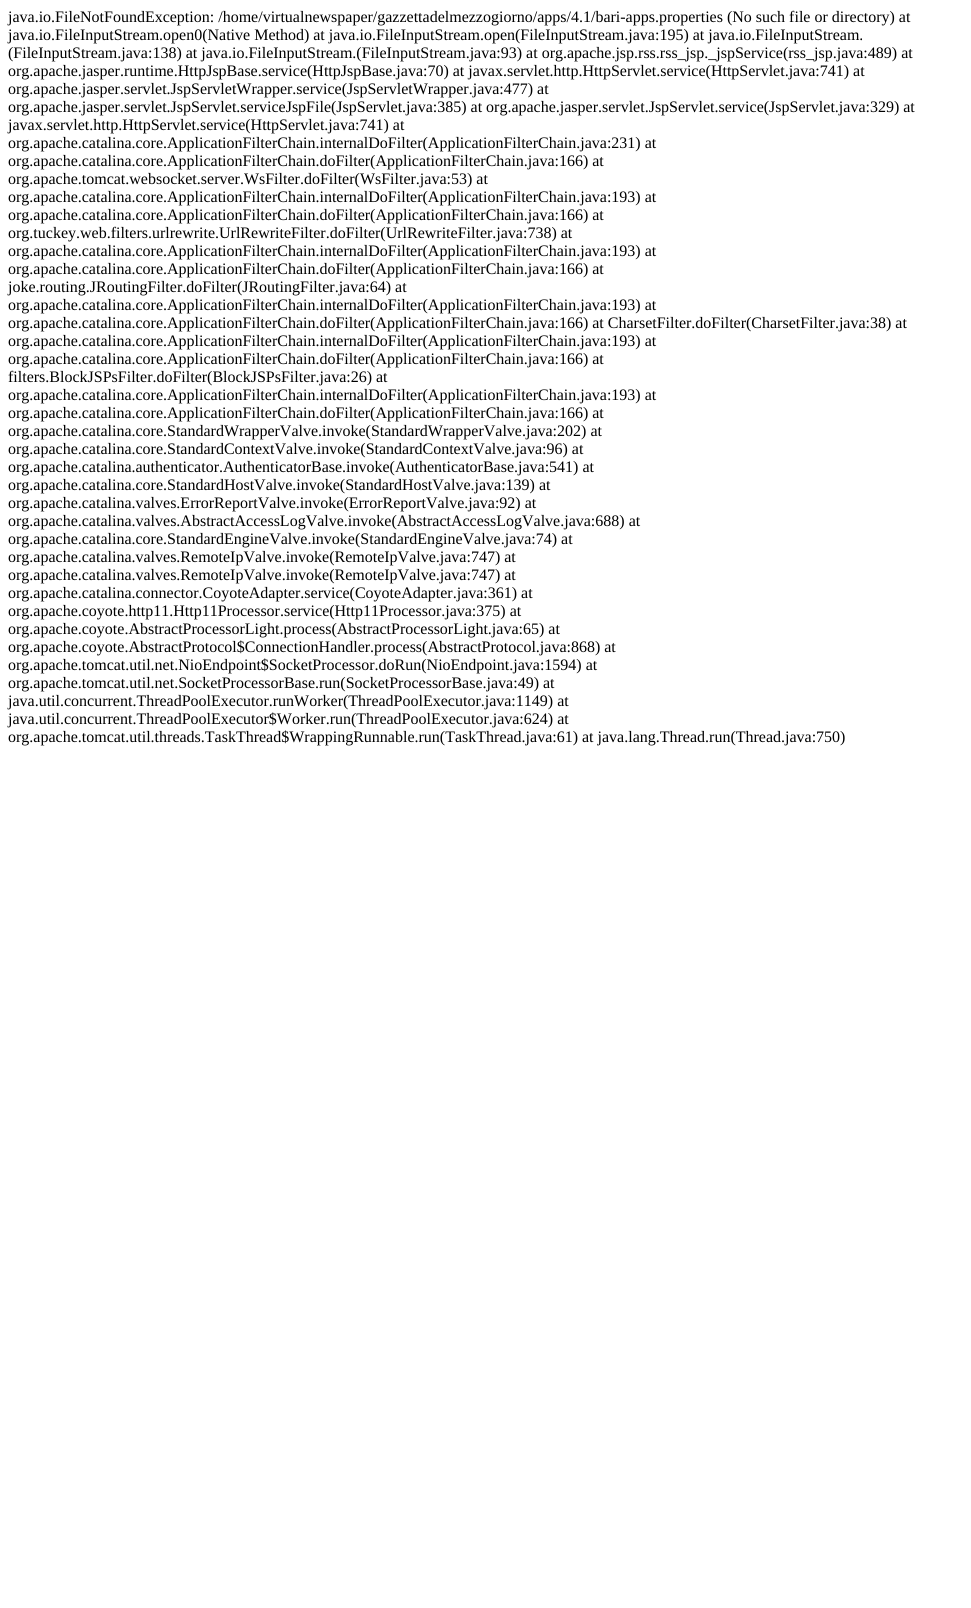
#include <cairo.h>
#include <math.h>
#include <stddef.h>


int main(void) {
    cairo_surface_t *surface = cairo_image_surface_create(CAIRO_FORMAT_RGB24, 971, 1608);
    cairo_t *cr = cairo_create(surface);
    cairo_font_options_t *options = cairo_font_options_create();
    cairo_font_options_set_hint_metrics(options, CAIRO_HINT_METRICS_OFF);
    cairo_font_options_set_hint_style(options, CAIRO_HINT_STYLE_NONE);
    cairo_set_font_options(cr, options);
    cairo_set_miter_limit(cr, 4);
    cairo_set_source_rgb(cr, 1, 1, 1);
    cairo_paint(cr);
    cairo_select_font_face(cr, "Liberation Serif", CAIRO_FONT_SLANT_NORMAL, CAIRO_FONT_WEIGHT_NORMAL);
    cairo_set_font_size(cr, 16);
    cairo_set_source_rgb(cr, 0, 0, 0);
    cairo_move_to(cr, 8, 22);
    cairo_show_text(cr, "java.io.FileNotFoundException: /home/virtualnewspaper/gazzettadelmezzogiorno/apps/4.1/bari-apps.properties (No such file or directory) at");
    cairo_move_to(cr, 8, 40);
    cairo_show_text(cr, "java.io.FileInputStream.open0(Native Method) at java.io.FileInputStream.open(FileInputStream.java:195) at java.io.FileInputStream.");
    cairo_move_to(cr, 8, 58);
    cairo_show_text(cr, "(FileInputStream.java:138) at java.io.FileInputStream.(FileInputStream.java:93) at org.apache.jsp.rss.rss_jsp._jspService(rss_jsp.java:489) at");
    cairo_move_to(cr, 8, 76);
    cairo_show_text(cr, "org.apache.jasper.runtime.HttpJspBase.service(HttpJspBase.java:70) at javax.servlet.http.HttpServlet.service(HttpServlet.java:741) at");
    cairo_move_to(cr, 8, 94);
    cairo_show_text(cr, "org.apache.jasper.servlet.JspServletWrapper.service(JspServletWrapper.java:477) at");
    cairo_move_to(cr, 8, 112);
    cairo_show_text(cr, "org.apache.jasper.servlet.JspServlet.serviceJspFile(JspServlet.java:385) at org.apache.jasper.servlet.JspServlet.service(JspServlet.java:329) at");
    cairo_move_to(cr, 8, 130);
    cairo_show_text(cr, "javax.servlet.http.HttpServlet.service(HttpServlet.java:741) at");
    cairo_move_to(cr, 8, 148);
    cairo_show_text(cr, "org.apache.catalina.core.ApplicationFilterChain.internalDoFilter(ApplicationFilterChain.java:231) at");
    cairo_move_to(cr, 8, 166);
    cairo_show_text(cr, "org.apache.catalina.core.ApplicationFilterChain.doFilter(ApplicationFilterChain.java:166) at");
    cairo_move_to(cr, 8, 184);
    cairo_show_text(cr, "org.apache.tomcat.websocket.server.WsFilter.doFilter(WsFilter.java:53) at");
    cairo_move_to(cr, 8, 202);
    cairo_show_text(cr, "org.apache.catalina.core.ApplicationFilterChain.internalDoFilter(ApplicationFilterChain.java:193) at");
    cairo_move_to(cr, 8, 220);
    cairo_show_text(cr, "org.apache.catalina.core.ApplicationFilterChain.doFilter(ApplicationFilterChain.java:166) at");
    cairo_move_to(cr, 8, 238);
    cairo_show_text(cr, "org.tuckey.web.filters.urlrewrite.UrlRewriteFilter.doFilter(UrlRewriteFilter.java:738) at");
    cairo_move_to(cr, 8, 256);
    cairo_show_text(cr, "org.apache.catalina.core.ApplicationFilterChain.internalDoFilter(ApplicationFilterChain.java:193) at");
    cairo_move_to(cr, 8, 274);
    cairo_show_text(cr, "org.apache.catalina.core.ApplicationFilterChain.doFilter(ApplicationFilterChain.java:166) at");
    cairo_move_to(cr, 8, 292);
    cairo_show_text(cr, "joke.routing.JRoutingFilter.doFilter(JRoutingFilter.java:64) at");
    cairo_move_to(cr, 8, 310);
    cairo_show_text(cr, "org.apache.catalina.core.ApplicationFilterChain.internalDoFilter(ApplicationFilterChain.java:193) at");
    cairo_move_to(cr, 8, 328);
    cairo_show_text(cr, "org.apache.catalina.core.ApplicationFilterChain.doFilter(ApplicationFilterChain.java:166) at CharsetFilter.doFilter(CharsetFilter.java:38) at");
    cairo_move_to(cr, 8, 346);
    cairo_show_text(cr, "org.apache.catalina.core.ApplicationFilterChain.internalDoFilter(ApplicationFilterChain.java:193) at");
    cairo_move_to(cr, 8, 364);
    cairo_show_text(cr, "org.apache.catalina.core.ApplicationFilterChain.doFilter(ApplicationFilterChain.java:166) at");
    cairo_move_to(cr, 8, 382);
    cairo_show_text(cr, "filters.BlockJSPsFilter.doFilter(BlockJSPsFilter.java:26) at");
    cairo_move_to(cr, 8, 400);
    cairo_show_text(cr, "org.apache.catalina.core.ApplicationFilterChain.internalDoFilter(ApplicationFilterChain.java:193) at");
    cairo_move_to(cr, 8, 418);
    cairo_show_text(cr, "org.apache.catalina.core.ApplicationFilterChain.doFilter(ApplicationFilterChain.java:166) at");
    cairo_move_to(cr, 8, 436);
    cairo_show_text(cr, "org.apache.catalina.core.StandardWrapperValve.invoke(StandardWrapperValve.java:202) at");
    cairo_move_to(cr, 8, 454);
    cairo_show_text(cr, "org.apache.catalina.core.StandardContextValve.invoke(StandardContextValve.java:96) at");
    cairo_move_to(cr, 8, 472);
    cairo_show_text(cr, "org.apache.catalina.authenticator.AuthenticatorBase.invoke(AuthenticatorBase.java:541) at");
    cairo_move_to(cr, 8, 490);
    cairo_show_text(cr, "org.apache.catalina.core.StandardHostValve.invoke(StandardHostValve.java:139) at");
    cairo_move_to(cr, 8, 508);
    cairo_show_text(cr, "org.apache.catalina.valves.ErrorReportValve.invoke(ErrorReportValve.java:92) at");
    cairo_move_to(cr, 8, 526);
    cairo_show_text(cr, "org.apache.catalina.valves.AbstractAccessLogValve.invoke(AbstractAccessLogValve.java:688) at");
    cairo_move_to(cr, 8, 544);
    cairo_show_text(cr, "org.apache.catalina.core.StandardEngineValve.invoke(StandardEngineValve.java:74) at");
    cairo_move_to(cr, 8, 562);
    cairo_show_text(cr, "org.apache.catalina.valves.RemoteIpValve.invoke(RemoteIpValve.java:747) at");
    cairo_move_to(cr, 8, 580);
    cairo_show_text(cr, "org.apache.catalina.valves.RemoteIpValve.invoke(RemoteIpValve.java:747) at");
    cairo_move_to(cr, 8, 598);
    cairo_show_text(cr, "org.apache.catalina.connector.CoyoteAdapter.service(CoyoteAdapter.java:361) at");
    cairo_move_to(cr, 8, 616);
    cairo_show_text(cr, "org.apache.coyote.http11.Http11Processor.service(Http11Processor.java:375) at");
    cairo_move_to(cr, 8, 634);
    cairo_show_text(cr, "org.apache.coyote.AbstractProcessorLight.process(AbstractProcessorLight.java:65) at");
    cairo_move_to(cr, 8, 652);
    cairo_show_text(cr, "org.apache.coyote.AbstractProtocol$ConnectionHandler.process(AbstractProtocol.java:868) at");
    cairo_move_to(cr, 8, 670);
    cairo_show_text(cr, "org.apache.tomcat.util.net.NioEndpoint$SocketProcessor.doRun(NioEndpoint.java:1594) at");
    cairo_move_to(cr, 8, 688);
    cairo_show_text(cr, "org.apache.tomcat.util.net.SocketProcessorBase.run(SocketProcessorBase.java:49) at");
    cairo_move_to(cr, 8, 706);
    cairo_show_text(cr, "java.util.concurrent.ThreadPoolExecutor.runWorker(ThreadPoolExecutor.java:1149) at");
    cairo_move_to(cr, 8, 724);
    cairo_show_text(cr, "java.util.concurrent.ThreadPoolExecutor$Worker.run(ThreadPoolExecutor.java:624) at");
    cairo_move_to(cr, 8, 742);
    cairo_show_text(cr, "org.apache.tomcat.util.threads.TaskThread$WrappingRunnable.run(TaskThread.java:61) at java.lang.Thread.run(Thread.java:750)");
    cairo_surface_write_to_png(surface, "page.png");
    cairo_font_options_destroy(options);
    cairo_destroy(cr);
    cairo_surface_destroy(surface);
    return 0;
}
